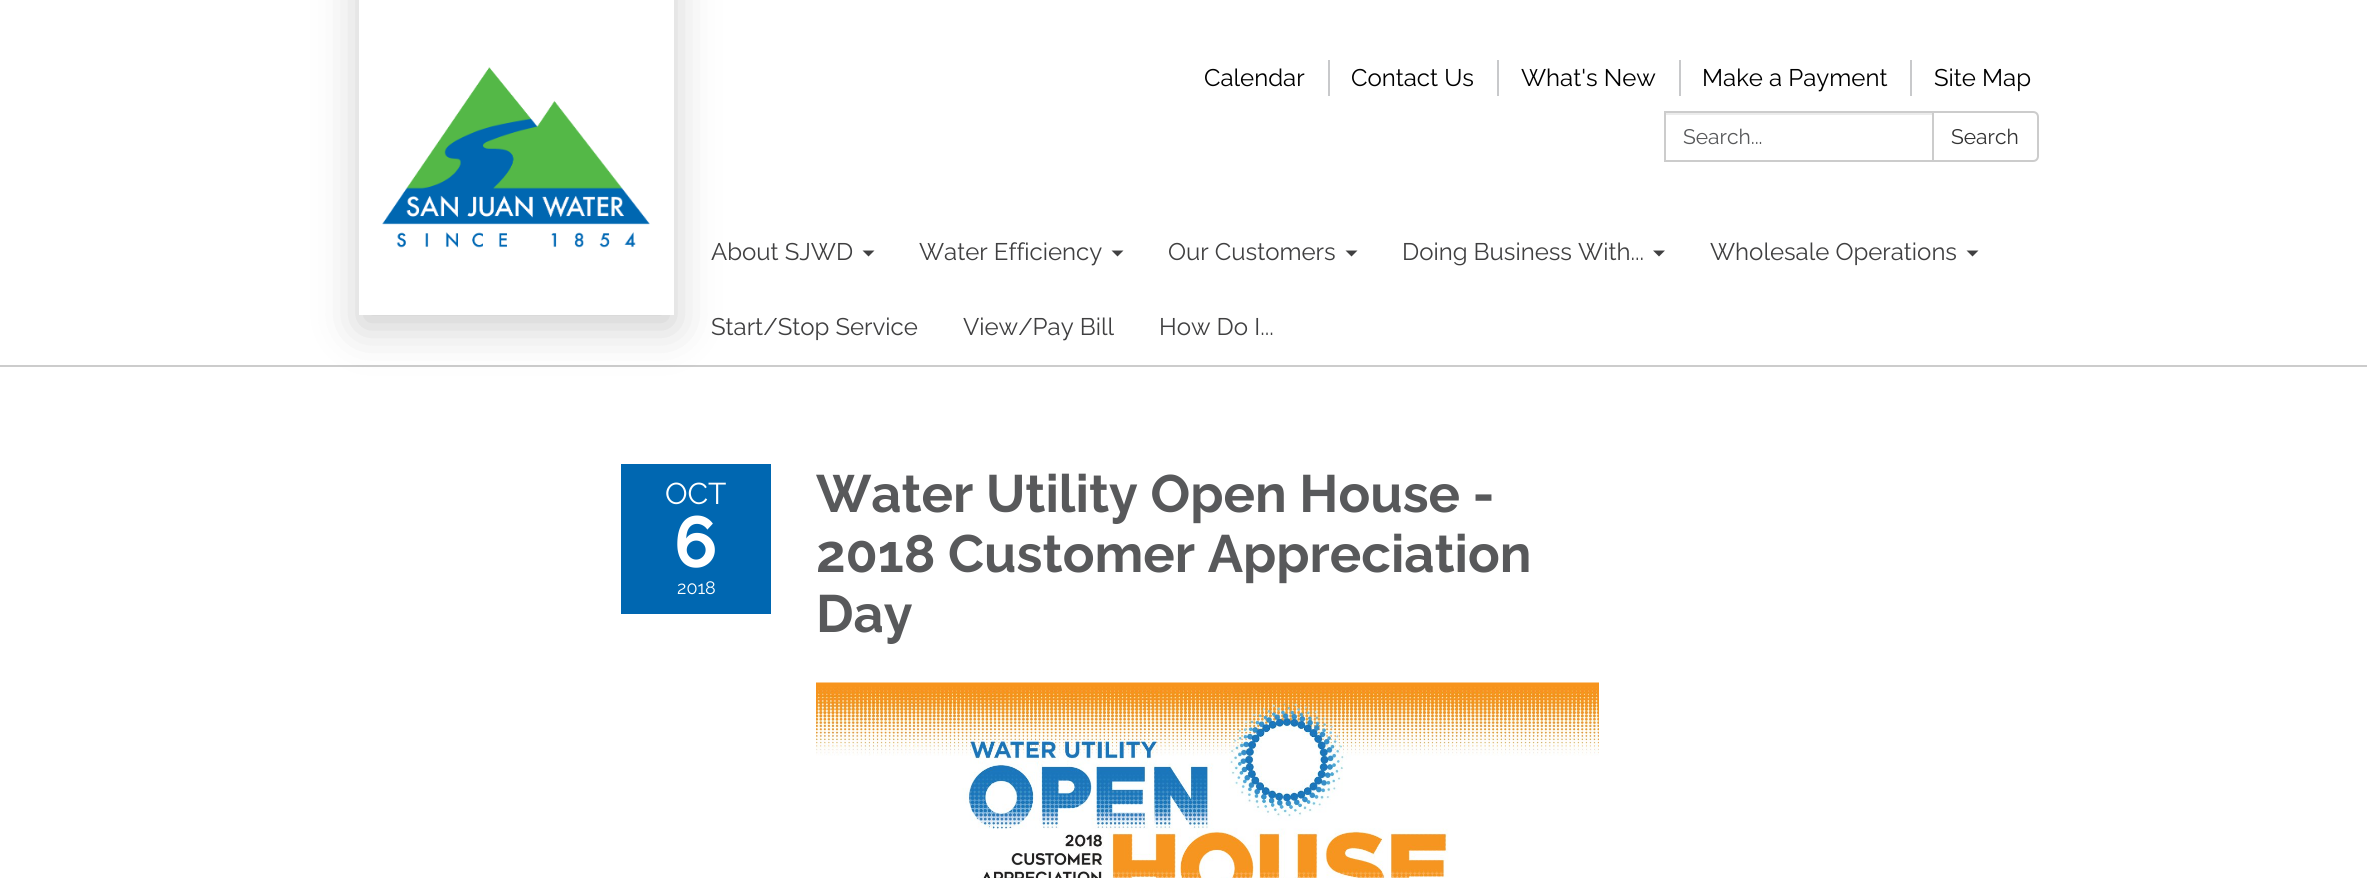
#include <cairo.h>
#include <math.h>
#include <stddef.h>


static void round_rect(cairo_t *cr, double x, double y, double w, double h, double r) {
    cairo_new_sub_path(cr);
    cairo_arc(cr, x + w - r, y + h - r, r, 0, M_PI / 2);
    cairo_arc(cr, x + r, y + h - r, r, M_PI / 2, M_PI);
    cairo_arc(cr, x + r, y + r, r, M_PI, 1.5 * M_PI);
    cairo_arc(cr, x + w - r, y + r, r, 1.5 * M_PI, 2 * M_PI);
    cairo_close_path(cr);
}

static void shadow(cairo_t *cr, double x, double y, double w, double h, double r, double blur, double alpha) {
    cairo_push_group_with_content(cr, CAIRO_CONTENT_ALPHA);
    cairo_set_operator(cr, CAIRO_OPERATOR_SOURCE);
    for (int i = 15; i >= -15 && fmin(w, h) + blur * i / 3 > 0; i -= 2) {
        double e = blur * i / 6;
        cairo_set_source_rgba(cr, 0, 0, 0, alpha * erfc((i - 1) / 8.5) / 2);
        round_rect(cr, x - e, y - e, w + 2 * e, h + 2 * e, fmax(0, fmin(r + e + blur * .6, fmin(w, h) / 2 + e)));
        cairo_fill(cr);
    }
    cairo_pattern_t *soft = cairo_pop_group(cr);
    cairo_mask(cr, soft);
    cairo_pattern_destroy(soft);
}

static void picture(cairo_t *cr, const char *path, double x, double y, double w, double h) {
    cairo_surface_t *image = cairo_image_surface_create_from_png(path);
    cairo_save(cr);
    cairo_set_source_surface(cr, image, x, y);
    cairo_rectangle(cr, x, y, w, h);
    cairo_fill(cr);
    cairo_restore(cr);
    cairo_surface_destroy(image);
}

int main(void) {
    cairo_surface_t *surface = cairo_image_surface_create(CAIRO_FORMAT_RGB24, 2367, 878);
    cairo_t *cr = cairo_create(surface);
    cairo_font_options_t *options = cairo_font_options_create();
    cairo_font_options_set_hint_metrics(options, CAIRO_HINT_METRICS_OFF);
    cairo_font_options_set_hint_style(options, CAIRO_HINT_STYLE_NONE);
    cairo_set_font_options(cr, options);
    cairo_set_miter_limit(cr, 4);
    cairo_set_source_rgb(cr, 1, 1, 1);
    cairo_paint(cr);
    cairo_set_source_rgb(cr, 0.8, 0.8, 0.8);
    cairo_rectangle(cr, 0, 365, 2367, 2);
    cairo_fill(cr);
    cairo_set_source_rgb(cr, 0, 0, 0);
    shadow(cr, 359, -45, 315, 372, 0, 22.5, 0.2);
    cairo_set_source_rgb(cr, 1, 1, 1);
    cairo_rectangle(cr, 359, 0, 315, 315);
    cairo_fill(cr);
    picture(cr, "img1.png", 382, 67, 268, 181);
    cairo_select_font_face(cr, "Raleway", CAIRO_FONT_SLANT_NORMAL, CAIRO_FONT_WEIGHT_NORMAL);
    cairo_set_font_size(cr, 24);
    cairo_set_source_rgb(cr, 0, 0, 0);
    cairo_move_to(cr, 1204, 86);
    cairo_show_text(cr, "Calendar");
    cairo_set_source_rgb(cr, 0.784, 0.788, 0.796);
    cairo_rectangle(cr, 1328, 60, 2, 36);
    cairo_fill(cr);
    cairo_set_source_rgb(cr, 0, 0, 0);
    cairo_move_to(cr, 1351, 86);
    cairo_show_text(cr, "Contact Us");
    cairo_set_source_rgb(cr, 0.784, 0.788, 0.796);
    cairo_rectangle(cr, 1497, 60, 2, 36);
    cairo_fill(cr);
    cairo_set_source_rgb(cr, 0, 0, 0);
    cairo_move_to(cr, 1521, 86);
    cairo_show_text(cr, "What's New");
    cairo_set_source_rgb(cr, 0.784, 0.788, 0.796);
    cairo_rectangle(cr, 1679, 60, 2, 36);
    cairo_fill(cr);
    cairo_set_source_rgb(cr, 0, 0, 0);
    cairo_move_to(cr, 1702, 86);
    cairo_show_text(cr, "Make a Payment");
    cairo_set_source_rgb(cr, 0.784, 0.788, 0.796);
    cairo_rectangle(cr, 1910, 60, 2, 36);
    cairo_fill(cr);
    cairo_set_source_rgb(cr, 0, 0, 0);
    cairo_move_to(cr, 1934, 86);
    cairo_show_text(cr, "Site Map");
    cairo_set_source_rgb(cr, 0.925, 0.925, 0.925);
    cairo_rectangle(cr, 1665, 113, 267, 2);
    cairo_fill(cr);
    cairo_rectangle(cr, 1665, 112, 268, 49);
    cairo_set_source_rgb(cr, 0.8, 0.8, 0.8);
    cairo_stroke(cr);
    cairo_set_font_size(cr, 21);
    cairo_set_source_rgb(cr, 0.345, 0.349, 0.357);
    cairo_move_to(cr, 1683, 144);
    cairo_show_text(cr, "Search...");
    cairo_set_source_rgb(cr, 1, 1, 1);
    cairo_new_path(cr);
    cairo_move_to(cr, 1933, 112);
    cairo_line_to(cr, 2033, 112);
    cairo_curve_to(cr, 2036, 112, 2038, 114, 2038, 117);
    cairo_line_to(cr, 2038, 156);
    cairo_curve_to(cr, 2038, 159, 2036, 161, 2033, 161);
    cairo_line_to(cr, 1933, 161);
    cairo_close_path(cr);
    cairo_fill_preserve(cr);
    cairo_set_source_rgb(cr, 0.8, 0.8, 0.8);
    cairo_stroke(cr);
    cairo_set_source_rgb(cr, 0.2, 0.2, 0.2);
    cairo_move_to(cr, 1951, 144);
    cairo_show_text(cr, "Search");
    cairo_set_font_size(cr, 24);
    cairo_set_source_rgb(cr, 0.251, 0.251, 0.255);
    cairo_move_to(cr, 711, 260);
    cairo_show_text(cr, "About SJWD");
    cairo_new_path(cr);
    cairo_move_to(cr, 862.5, 250.5);
    cairo_line_to(cr, 874.5, 250.5);
    cairo_line_to(cr, 868.5, 256.5);
    cairo_close_path(cr);
    cairo_fill(cr);
    cairo_move_to(cr, 919, 260);
    cairo_show_text(cr, "Water Efficiency");
    cairo_new_path(cr);
    cairo_move_to(cr, 1111.5, 250.5);
    cairo_line_to(cr, 1123.5, 250.5);
    cairo_line_to(cr, 1117.5, 256.5);
    cairo_close_path(cr);
    cairo_fill(cr);
    cairo_move_to(cr, 1168, 260);
    cairo_show_text(cr, "Our Customers");
    cairo_new_path(cr);
    cairo_move_to(cr, 1345.5, 250.5);
    cairo_line_to(cr, 1357.5, 250.5);
    cairo_line_to(cr, 1351.5, 256.5);
    cairo_close_path(cr);
    cairo_fill(cr);
    cairo_move_to(cr, 1402, 260);
    cairo_show_text(cr, "Doing Business With...");
    cairo_new_path(cr);
    cairo_move_to(cr, 1653, 250.5);
    cairo_line_to(cr, 1665, 250.5);
    cairo_line_to(cr, 1659, 256.5);
    cairo_close_path(cr);
    cairo_fill(cr);
    cairo_move_to(cr, 1710, 260);
    cairo_show_text(cr, "Wholesale Operations");
    cairo_new_path(cr);
    cairo_move_to(cr, 1966.5, 250.5);
    cairo_line_to(cr, 1978.5, 250.5);
    cairo_line_to(cr, 1972.5, 256.5);
    cairo_close_path(cr);
    cairo_fill(cr);
    cairo_move_to(cr, 711, 335);
    cairo_show_text(cr, "Start/Stop Service");
    cairo_move_to(cr, 963, 335);
    cairo_show_text(cr, "View/Pay Bill");
    cairo_move_to(cr, 1159, 335);
    cairo_show_text(cr, "How Do I...");
    cairo_set_source_rgb(cr, 0, 0.404, 0.694);
    cairo_rectangle(cr, 621, 464, 150, 150);
    cairo_fill(cr);
    cairo_set_font_size(cr, 30);
    cairo_set_source_rgb(cr, 1, 1, 1);
    cairo_move_to(cr, 665, 504);
    cairo_show_text(cr, "OCT");
    cairo_select_font_face(cr, "Raleway", CAIRO_FONT_SLANT_NORMAL, CAIRO_FONT_WEIGHT_BOLD);
    cairo_set_font_size(cr, 72);
    cairo_move_to(cr, 674, 567);
    cairo_show_text(cr, "6");
    cairo_select_font_face(cr, "Raleway", CAIRO_FONT_SLANT_NORMAL, CAIRO_FONT_WEIGHT_NORMAL);
    cairo_set_font_size(cr, 18);
    cairo_move_to(cr, 677, 594);
    cairo_show_text(cr, "2018");
    cairo_select_font_face(cr, "Raleway", CAIRO_FONT_SLANT_NORMAL, CAIRO_FONT_WEIGHT_BOLD);
    cairo_set_font_size(cr, 52.5);
    cairo_set_source_rgb(cr, 0.345, 0.349, 0.357);
    cairo_move_to(cr, 816, 512);
    cairo_show_text(cr, "Water Utility Open House -");
    cairo_move_to(cr, 816, 572);
    cairo_show_text(cr, "2018 Customer Appreciation");
    cairo_move_to(cr, 816, 632);
    cairo_show_text(cr, "Day");
    picture(cr, "img2.png", 816, 682, 783, 196);
    cairo_surface_write_to_png(surface, "page.png");
    cairo_font_options_destroy(options);
    cairo_destroy(cr);
    cairo_surface_destroy(surface);
    return 0;
}
